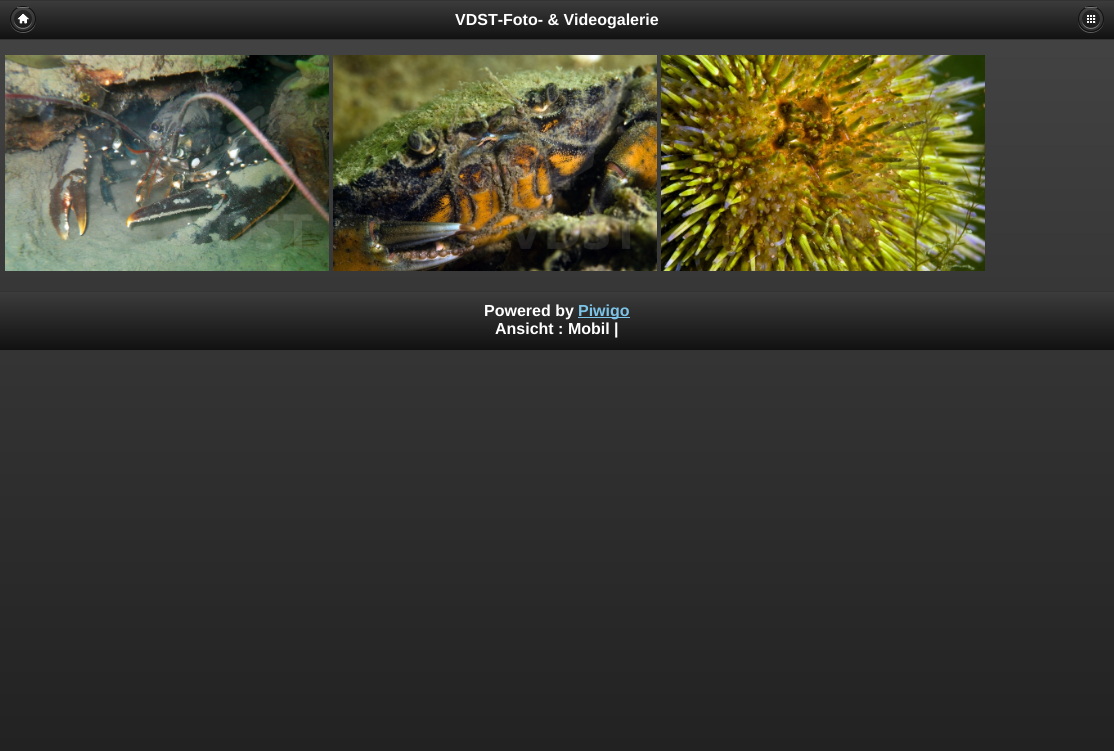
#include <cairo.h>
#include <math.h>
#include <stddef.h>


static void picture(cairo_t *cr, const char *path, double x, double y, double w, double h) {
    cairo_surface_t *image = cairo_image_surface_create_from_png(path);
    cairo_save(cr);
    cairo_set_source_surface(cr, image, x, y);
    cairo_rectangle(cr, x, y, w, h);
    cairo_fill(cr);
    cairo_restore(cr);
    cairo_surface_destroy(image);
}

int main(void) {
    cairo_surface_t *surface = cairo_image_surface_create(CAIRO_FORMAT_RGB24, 1114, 751);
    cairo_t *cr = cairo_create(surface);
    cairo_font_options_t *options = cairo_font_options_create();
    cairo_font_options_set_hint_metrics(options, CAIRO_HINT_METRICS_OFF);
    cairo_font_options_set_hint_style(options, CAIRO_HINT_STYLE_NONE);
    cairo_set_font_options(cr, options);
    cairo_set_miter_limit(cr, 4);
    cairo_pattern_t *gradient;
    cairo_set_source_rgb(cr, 1, 1, 1);
    cairo_paint(cr);
    gradient = cairo_pattern_create_linear(557, 0, 557, 751);
    cairo_pattern_add_color_stop_rgba(gradient, 0, 0.267, 0.267, 0.267, 1);
    cairo_pattern_add_color_stop_rgba(gradient, 1, 0.133, 0.133, 0.133, 1);
    cairo_set_source(cr, gradient);
    cairo_pattern_destroy(gradient);
    cairo_rectangle(cr, 0, 40, 1114, 711);
    cairo_fill(cr);
    gradient = cairo_pattern_create_linear(557, 1, 557, 39);
    cairo_pattern_add_color_stop_rgba(gradient, 0, 0.235, 0.235, 0.235, 1);
    cairo_pattern_add_color_stop_rgba(gradient, 1, 0.067, 0.067, 0.067, 1);
    cairo_set_source(cr, gradient);
    cairo_pattern_destroy(gradient);
    cairo_rectangle(cr, 0, 1, 1114, 38);
    cairo_fill(cr);
    cairo_set_source_rgb(cr, 0.2, 0.2, 0.2);
    cairo_rectangle(cr, 0, 0, 1114, 1);
    cairo_fill(cr);
    cairo_rectangle(cr, 0, 39, 1114, 1);
    cairo_fill(cr);
    cairo_set_source_rgba(cr, 1, 1, 1, 0.3);
    cairo_new_path(cr);
    cairo_move_to(cr, 10, 19.5);
    cairo_curve_to(cr, 9.5, 32.5, 26.5, 38, 34, 27.5);
    cairo_curve_to(cr, 35.5, 25, 36, 22, 36, 19.5);
    cairo_curve_to(cr, 35.5, 36, 10.5, 36, 10, 19.5);
    cairo_close_path(cr);
    cairo_fill(cr);
    gradient = cairo_pattern_create_linear(23, 7, 23, 31);
    cairo_pattern_add_color_stop_rgba(gradient, 0, 0.267, 0.267, 0.267, 1);
    cairo_pattern_add_color_stop_rgba(gradient, 1, 0.176, 0.176, 0.176, 1);
    cairo_set_source(cr, gradient);
    cairo_pattern_destroy(gradient);
    cairo_arc(cr, 23, 19, 12, 0, 2 * M_PI);
    cairo_fill(cr);
    cairo_arc(cr, 23, 19, 12.5, 0, 2 * M_PI);
    cairo_set_source_rgb(cr, 0.067, 0.067, 0.067);
    cairo_set_line_width(cr, 1);
    cairo_stroke(cr);
    cairo_set_source_rgba(cr, 1, 1, 1, 0.3);
    cairo_rectangle(cr, 17, 7, 12, 1);
    cairo_fill(cr);
    cairo_set_source_rgba(cr, 1, 1, 1, 0.4);
    cairo_new_path(cr);
    cairo_move_to(cr, 14, 19.5);
    cairo_curve_to(cr, 13.5, 32, 32.5, 32, 32, 19.5);
    cairo_curve_to(cr, 31.5, 30.5, 14.5, 30.5, 14, 19.5);
    cairo_close_path(cr);
    cairo_fill(cr);
    cairo_set_source_rgba(cr, 0, 0, 0, 0.4);
    cairo_arc(cr, 23, 19, 9, 0, 2 * M_PI);
    cairo_fill(cr);
    picture(cr, "img1.png", 17, 13, 12, 11);
    cairo_select_font_face(cr, "Liberation Sans", CAIRO_FONT_SLANT_NORMAL, CAIRO_FONT_WEIGHT_BOLD);
    cairo_set_font_size(cr, 16);
    cairo_set_source_rgb(cr, 1, 1, 1);
    cairo_move_to(cr, 455, 25);
    cairo_show_text(cr, "VDST-Foto- & Videogalerie");
    cairo_set_source_rgba(cr, 1, 1, 1, 0.3);
    cairo_new_path(cr);
    cairo_move_to(cr, 1078, 19.5);
    cairo_curve_to(cr, 1078, 22, 1078.5, 25, 1080, 27.5);
    cairo_curve_to(cr, 1087.5, 38, 1104.5, 32.5, 1104, 19.5);
    cairo_curve_to(cr, 1103.5, 36, 1078.5, 36, 1078, 19.5);
    cairo_close_path(cr);
    cairo_fill(cr);
    gradient = cairo_pattern_create_linear(1091, 7, 1091, 31);
    cairo_pattern_add_color_stop_rgba(gradient, 0, 0.267, 0.267, 0.267, 1);
    cairo_pattern_add_color_stop_rgba(gradient, 1, 0.176, 0.176, 0.176, 1);
    cairo_set_source(cr, gradient);
    cairo_pattern_destroy(gradient);
    cairo_arc(cr, 1091, 19, 12, 0, 2 * M_PI);
    cairo_fill(cr);
    cairo_arc(cr, 1091, 19, 12.5, 0, 2 * M_PI);
    cairo_set_source_rgb(cr, 0.067, 0.067, 0.067);
    cairo_stroke(cr);
    cairo_set_source_rgba(cr, 1, 1, 1, 0.3);
    cairo_rectangle(cr, 1085, 7, 12, 1);
    cairo_fill(cr);
    cairo_set_source_rgba(cr, 1, 1, 1, 0.4);
    cairo_new_path(cr);
    cairo_move_to(cr, 1100, 19.5);
    cairo_curve_to(cr, 1099.5, 30.5, 1082.5, 30.5, 1082, 19.5);
    cairo_curve_to(cr, 1081.5, 32, 1100.5, 32, 1100, 19.5);
    cairo_close_path(cr);
    cairo_fill(cr);
    cairo_set_source_rgba(cr, 0, 0, 0, 0.4);
    cairo_arc(cr, 1091, 19, 9, 0, 2 * M_PI);
    cairo_fill(cr);
    picture(cr, "img2.png", 1087, 15, 9, 9);
    picture(cr, "img3.png", 5, 55, 324, 216);
    picture(cr, "img4.png", 333, 55, 324, 216);
    picture(cr, "img5.png", 661, 55, 324, 216);
    gradient = cairo_pattern_create_linear(557, 292, 557, 350);
    cairo_pattern_add_color_stop_rgba(gradient, 0, 0.235, 0.235, 0.235, 1);
    cairo_pattern_add_color_stop_rgba(gradient, 1, 0.067, 0.067, 0.067, 1);
    cairo_set_source(cr, gradient);
    cairo_pattern_destroy(gradient);
    cairo_rectangle(cr, 0, 292, 1114, 58);
    cairo_fill(cr);
    cairo_set_source_rgb(cr, 0.2, 0.2, 0.2);
    cairo_rectangle(cr, 0, 291, 1114, 1);
    cairo_fill(cr);
    cairo_set_source_rgb(cr, 1, 1, 1);
    cairo_move_to(cr, 484, 316);
    cairo_show_text(cr, "Powered by");
    cairo_set_source_rgb(cr, 0.486, 0.769, 0.906);
    cairo_rectangle(cr, 578, 317, 52, 1);
    cairo_fill(cr);
    cairo_move_to(cr, 578, 316);
    cairo_show_text(cr, "Piwigo");
    cairo_set_source_rgb(cr, 1, 1, 1);
    cairo_move_to(cr, 495, 334);
    cairo_show_text(cr, "Ansicht : Mobil |");
    cairo_surface_write_to_png(surface, "page.png");
    cairo_font_options_destroy(options);
    cairo_destroy(cr);
    cairo_surface_destroy(surface);
    return 0;
}
